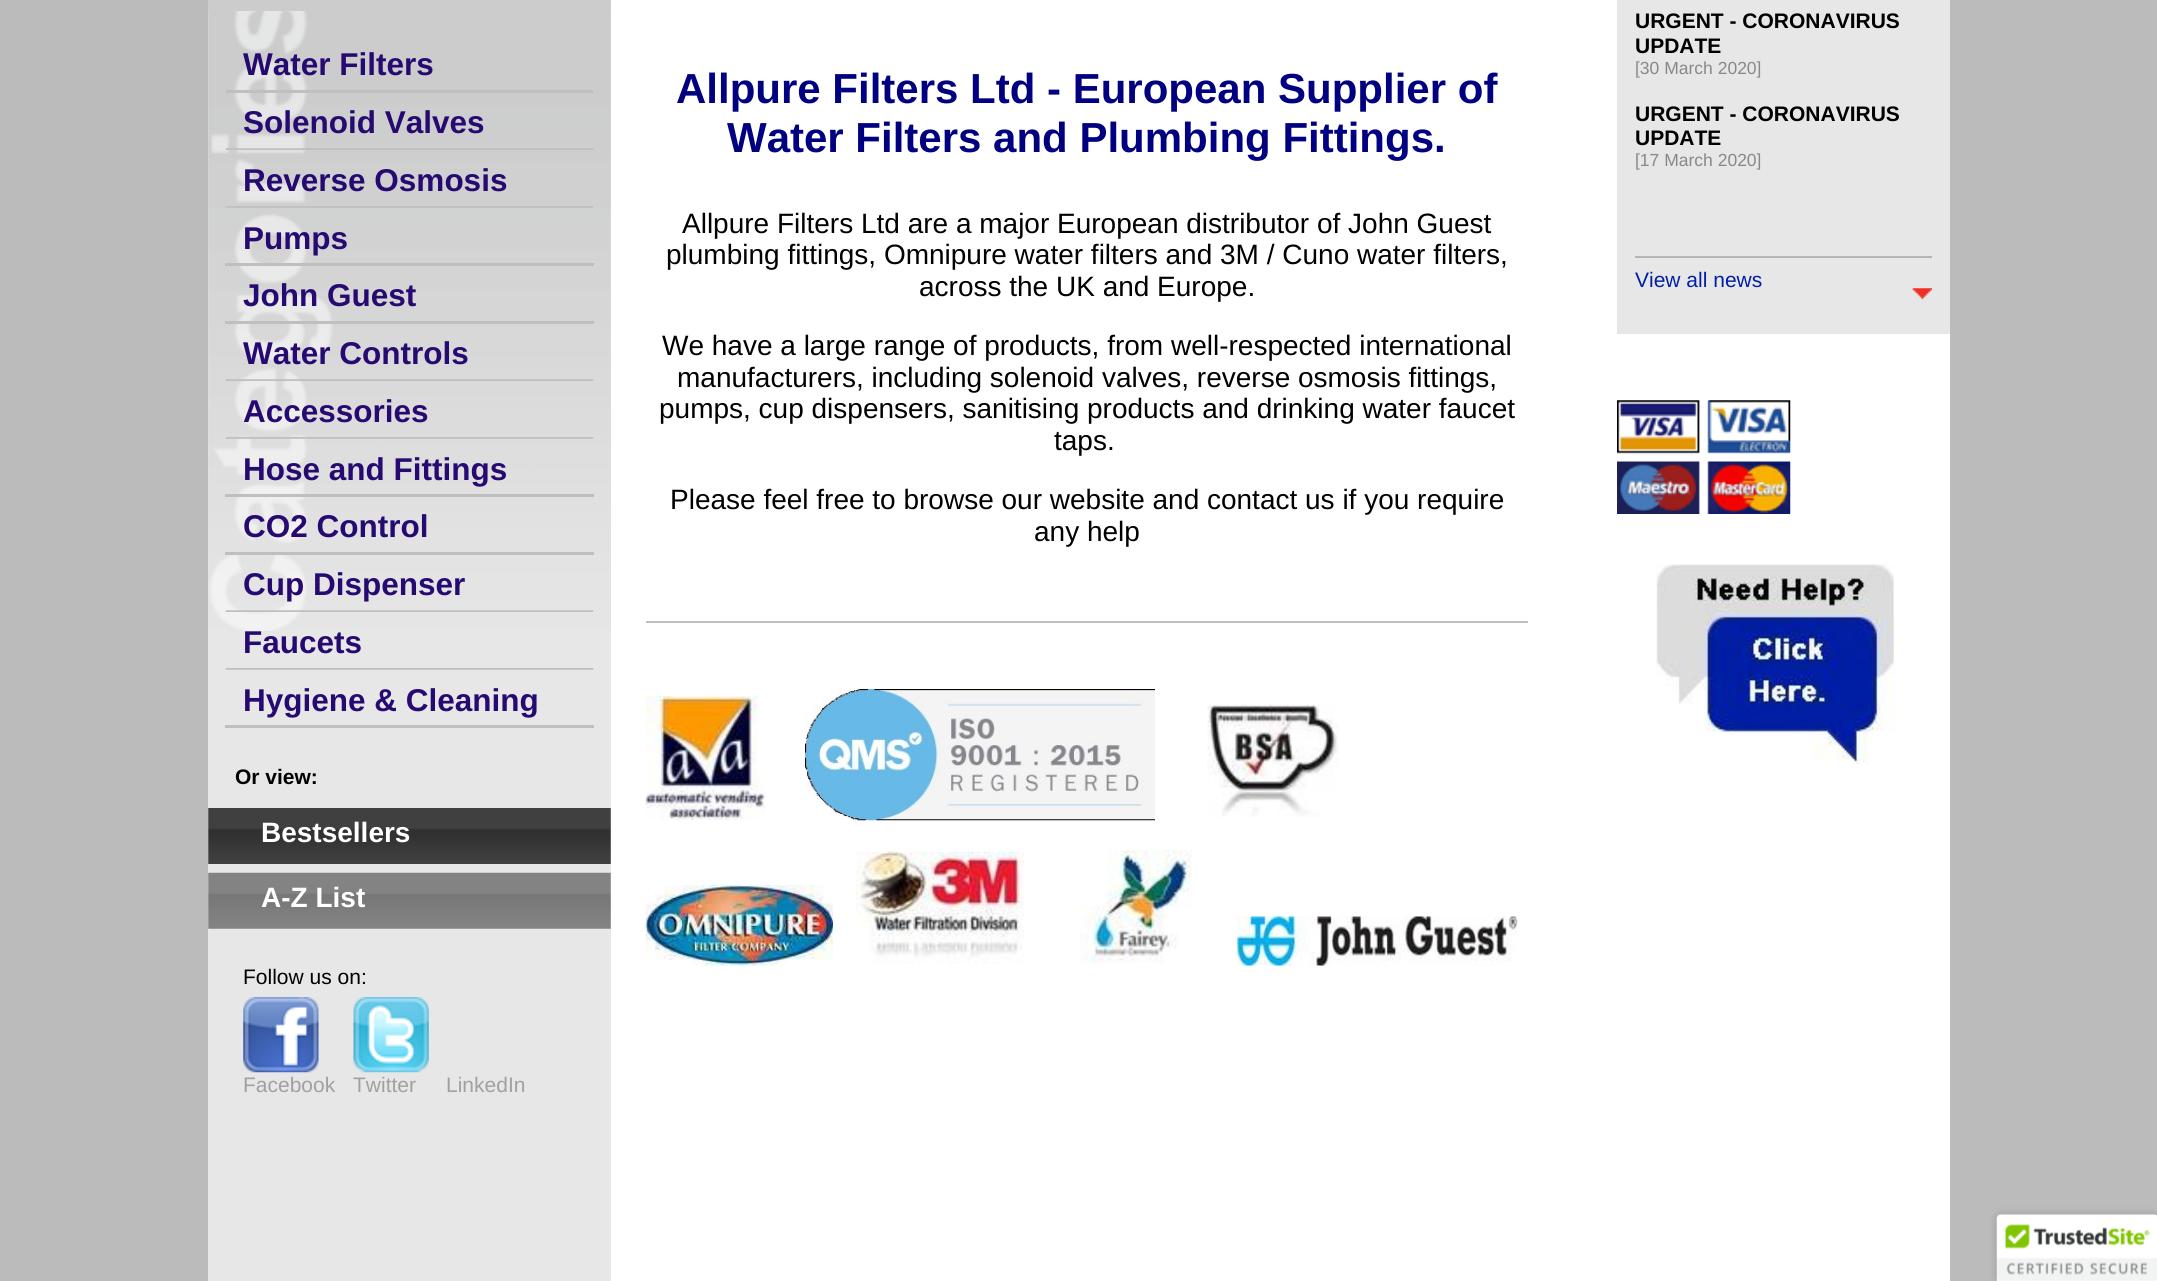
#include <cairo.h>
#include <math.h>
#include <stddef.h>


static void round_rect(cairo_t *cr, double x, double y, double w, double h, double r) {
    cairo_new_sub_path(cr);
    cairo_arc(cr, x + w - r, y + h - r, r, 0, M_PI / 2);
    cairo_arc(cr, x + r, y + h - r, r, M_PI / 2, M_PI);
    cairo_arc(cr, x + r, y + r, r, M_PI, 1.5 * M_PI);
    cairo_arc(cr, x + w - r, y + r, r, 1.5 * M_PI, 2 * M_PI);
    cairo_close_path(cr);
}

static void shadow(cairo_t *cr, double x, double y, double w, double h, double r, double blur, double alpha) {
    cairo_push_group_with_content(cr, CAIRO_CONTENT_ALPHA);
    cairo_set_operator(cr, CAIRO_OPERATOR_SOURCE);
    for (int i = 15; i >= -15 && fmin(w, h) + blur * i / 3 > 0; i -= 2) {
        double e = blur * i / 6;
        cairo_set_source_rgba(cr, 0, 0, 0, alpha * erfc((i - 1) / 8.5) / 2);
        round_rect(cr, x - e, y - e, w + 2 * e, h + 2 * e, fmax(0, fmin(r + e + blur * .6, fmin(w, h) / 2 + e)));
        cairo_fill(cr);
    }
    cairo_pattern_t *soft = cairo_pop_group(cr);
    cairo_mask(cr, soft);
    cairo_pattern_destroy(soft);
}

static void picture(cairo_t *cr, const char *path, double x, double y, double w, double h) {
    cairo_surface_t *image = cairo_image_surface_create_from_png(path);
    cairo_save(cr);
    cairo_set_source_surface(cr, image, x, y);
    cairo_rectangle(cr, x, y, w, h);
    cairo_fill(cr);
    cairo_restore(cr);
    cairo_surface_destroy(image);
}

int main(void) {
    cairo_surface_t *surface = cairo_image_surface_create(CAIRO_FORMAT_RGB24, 2157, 1281);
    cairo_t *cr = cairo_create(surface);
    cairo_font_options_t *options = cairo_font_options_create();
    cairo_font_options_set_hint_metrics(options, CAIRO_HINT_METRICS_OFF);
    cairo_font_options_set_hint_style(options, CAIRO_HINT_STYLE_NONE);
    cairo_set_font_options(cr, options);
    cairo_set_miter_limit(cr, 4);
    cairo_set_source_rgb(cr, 0.733, 0.733, 0.733);
    cairo_paint(cr);
    cairo_set_source_rgb(cr, 1, 1, 1);
    cairo_rectangle(cr, 611, 0, 1339, 1281);
    cairo_fill(cr);
    cairo_set_source_rgb(cr, 0.906, 0.906, 0.906);
    cairo_rectangle(cr, 208, 11, 403, 1270);
    cairo_fill(cr);
    picture(cr, "img1.png", 208, 11, 403, 620);
    cairo_set_source_rgb(cr, 0.8, 0.8, 0.8);
    cairo_rectangle(cr, 208, 0, 403, 11);
    cairo_fill(cr);
    cairo_select_font_face(cr, "Liberation Sans", CAIRO_FONT_SLANT_NORMAL, CAIRO_FONT_WEIGHT_BOLD);
    cairo_set_font_size(cr, 31.5);
    cairo_set_source_rgb(cr, 0.149, 0.039, 0.443);
    cairo_move_to(cr, 243, 75);
    cairo_show_text(cr, "Water Filters");
    cairo_set_source_rgb(cr, 0.749, 0.749, 0.749);
    cairo_rectangle(cr, 226, 90, 367, 3);
    cairo_fill(cr);
    cairo_set_source_rgb(cr, 0.149, 0.039, 0.443);
    cairo_move_to(cr, 243, 133);
    cairo_show_text(cr, "Solenoid Valves");
    picture(cr, "img2.png", 225, 148, 369, 2);
    cairo_move_to(cr, 243, 191);
    cairo_show_text(cr, "Reverse Osmosis");
    picture(cr, "img3.png", 225, 206, 369, 2);
    cairo_move_to(cr, 243, 249);
    cairo_show_text(cr, "Pumps");
    cairo_set_source_rgb(cr, 0.749, 0.749, 0.749);
    cairo_rectangle(cr, 225, 263, 369, 3);
    cairo_fill(cr);
    cairo_set_source_rgb(cr, 0.149, 0.039, 0.443);
    cairo_move_to(cr, 243, 306);
    cairo_show_text(cr, "John Guest");
    cairo_set_source_rgb(cr, 0.749, 0.749, 0.749);
    cairo_rectangle(cr, 225, 321, 369, 3);
    cairo_fill(cr);
    cairo_set_source_rgb(cr, 0.149, 0.039, 0.443);
    cairo_move_to(cr, 243, 364);
    cairo_show_text(cr, "Water Controls");
    picture(cr, "img4.png", 225, 379, 369, 2);
    cairo_move_to(cr, 243, 422);
    cairo_show_text(cr, "Accessories");
    picture(cr, "img5.png", 225, 437, 369, 2);
    cairo_move_to(cr, 243, 480);
    cairo_show_text(cr, "Hose and Fittings");
    cairo_set_source_rgb(cr, 0.749, 0.749, 0.749);
    cairo_rectangle(cr, 225, 494, 369, 3);
    cairo_fill(cr);
    cairo_set_source_rgb(cr, 0.149, 0.039, 0.443);
    cairo_move_to(cr, 243, 537);
    cairo_show_text(cr, "CO2 Control");
    cairo_set_source_rgb(cr, 0.749, 0.749, 0.749);
    cairo_rectangle(cr, 225, 552, 369, 3);
    cairo_fill(cr);
    cairo_set_source_rgb(cr, 0.149, 0.039, 0.443);
    cairo_move_to(cr, 243, 595);
    cairo_show_text(cr, "Cup Dispenser");
    picture(cr, "img6.png", 225, 610, 369, 2);
    cairo_move_to(cr, 243, 653);
    cairo_show_text(cr, "Faucets");
    picture(cr, "img7.png", 225, 668, 369, 2);
    cairo_move_to(cr, 243, 711);
    cairo_show_text(cr, "Hygiene & Cleaning");
    cairo_set_source_rgb(cr, 0.749, 0.749, 0.749);
    cairo_rectangle(cr, 225, 725, 369, 3);
    cairo_fill(cr);
    cairo_set_font_size(cr, 21);
    cairo_set_source_rgb(cr, 0, 0, 0);
    cairo_move_to(cr, 235, 784);
    cairo_show_text(cr, "Or view:");
    picture(cr, "img8.png", 208, 808, 403, 56);
    cairo_set_font_size(cr, 28);
    cairo_set_source_rgb(cr, 1, 1, 1);
    cairo_move_to(cr, 261, 842);
    cairo_show_text(cr, "Bestsellers");
    picture(cr, "img9.png", 208, 872, 403, 57);
    cairo_move_to(cr, 261, 907);
    cairo_show_text(cr, "A-Z List");
    cairo_select_font_face(cr, "Liberation Sans", CAIRO_FONT_SLANT_NORMAL, CAIRO_FONT_WEIGHT_NORMAL);
    cairo_set_font_size(cr, 21);
    cairo_set_source_rgb(cr, 0, 0, 0);
    cairo_move_to(cr, 243, 984);
    cairo_show_text(cr, "Follow us on:");
    picture(cr, "img10.png", 243, 997, 76, 76);
    picture(cr, "img11.png", 353, 997, 76, 76);
    cairo_set_source_rgb(cr, 0.627, 0.627, 0.627);
    cairo_move_to(cr, 243, 1092);
    cairo_show_text(cr, "Facebook");
    cairo_move_to(cr, 353, 1092);
    cairo_show_text(cr, "Twitter");
    cairo_move_to(cr, 446, 1092);
    cairo_show_text(cr, "LinkedIn");
    cairo_select_font_face(cr, "Liberation Sans", CAIRO_FONT_SLANT_NORMAL, CAIRO_FONT_WEIGHT_BOLD);
    cairo_set_font_size(cr, 42);
    cairo_set_source_rgb(cr, 0, 0, 0.502);
    cairo_move_to(cr, 676, 103);
    cairo_show_text(cr, "Allpure Filters Ltd - European Supplier of");
    cairo_move_to(cr, 727, 152);
    cairo_show_text(cr, "Water Filters and Plumbing Fittings.");
    cairo_select_font_face(cr, "Liberation Sans", CAIRO_FONT_SLANT_NORMAL, CAIRO_FONT_WEIGHT_NORMAL);
    cairo_set_font_size(cr, 28);
    cairo_set_source_rgb(cr, 0, 0, 0);
    cairo_move_to(cr, 682, 233);
    cairo_show_text(cr, "Allpure Filters Ltd are a major European distributor of John Guest");
    cairo_move_to(cr, 666, 264);
    cairo_show_text(cr, "plumbing fittings, Omnipure water filters and 3M / Cuno water filters,");
    cairo_move_to(cr, 919, 296);
    cairo_show_text(cr, "across the UK and Europe.");
    cairo_move_to(cr, 662, 355);
    cairo_show_text(cr, "We have a large range of products, from well-respected international");
    cairo_move_to(cr, 677, 387);
    cairo_show_text(cr, "manufacturers, including solenoid valves, reverse osmosis fittings,");
    cairo_move_to(cr, 659, 418);
    cairo_show_text(cr, "pumps, cup dispensers, sanitising products and drinking water faucet");
    cairo_move_to(cr, 1054, 450);
    cairo_show_text(cr, "taps.");
    cairo_move_to(cr, 670, 509);
    cairo_show_text(cr, "Please feel free to browse our website and contact us if you require");
    cairo_move_to(cr, 1034, 541);
    cairo_show_text(cr, "any help");
    cairo_set_source_rgb(cr, 0.753, 0.753, 0.753);
    cairo_rectangle(cr, 646, 621, 882, 2);
    cairo_fill(cr);
    picture(cr, "img12.png", 645, 696, 120, 125);
    picture(cr, "img13.png", 805, 689, 350, 132);
    picture(cr, "img14.png", 1207, 704, 132, 113);
    picture(cr, "img15.png", 645, 885, 188, 81);
    picture(cr, "img16.png", 856, 851, 168, 113);
    picture(cr, "img17.png", 1080, 850, 113, 114);
    picture(cr, "img18.png", 1237, 916, 281, 50);
    cairo_set_source_rgb(cr, 0.906, 0.906, 0.906);
    cairo_rectangle(cr, 1617, 0, 333, 334);
    cairo_fill(cr);
    cairo_select_font_face(cr, "Liberation Sans", CAIRO_FONT_SLANT_NORMAL, CAIRO_FONT_WEIGHT_BOLD);
    cairo_set_font_size(cr, 21);
    cairo_set_source_rgb(cr, 0, 0, 0);
    cairo_move_to(cr, 1635, 28);
    cairo_show_text(cr, "URGENT - CORONAVIRUS");
    cairo_move_to(cr, 1635, 53);
    cairo_show_text(cr, "UPDATE");
    cairo_select_font_face(cr, "Liberation Sans", CAIRO_FONT_SLANT_NORMAL, CAIRO_FONT_WEIGHT_NORMAL);
    cairo_set_font_size(cr, 17.5);
    cairo_set_source_rgb(cr, 0.533, 0.533, 0.533);
    cairo_move_to(cr, 1635, 74);
    cairo_show_text(cr, "[30 March 2020]");
    cairo_select_font_face(cr, "Liberation Sans", CAIRO_FONT_SLANT_NORMAL, CAIRO_FONT_WEIGHT_BOLD);
    cairo_set_font_size(cr, 21);
    cairo_set_source_rgb(cr, 0, 0, 0);
    cairo_move_to(cr, 1635, 121);
    cairo_show_text(cr, "URGENT - CORONAVIRUS");
    cairo_move_to(cr, 1635, 145);
    cairo_show_text(cr, "UPDATE");
    cairo_select_font_face(cr, "Liberation Sans", CAIRO_FONT_SLANT_NORMAL, CAIRO_FONT_WEIGHT_NORMAL);
    cairo_set_font_size(cr, 17.5);
    cairo_set_source_rgb(cr, 0.533, 0.533, 0.533);
    cairo_move_to(cr, 1635, 166);
    cairo_show_text(cr, "[17 March 2020]");
    cairo_set_source_rgb(cr, 0.71, 0.71, 0.71);
    cairo_rectangle(cr, 1635, 256, 297, 2);
    cairo_fill(cr);
    cairo_set_font_size(cr, 21);
    cairo_set_source_rgb(cr, 0.004, 0.122, 0.647);
    cairo_move_to(cr, 1635, 287);
    cairo_show_text(cr, "View all news");
    picture(cr, "img19.png", 1912, 288, 20, 11);
    picture(cr, "img20.png", 1617, 400, 174, 114);
    picture(cr, "img21.png", 1656, 564, 240, 201);
    cairo_set_source_rgb(cr, 0, 0, 0);
    shadow(cr, 1997, 1215, 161, 66, 4, 4.5, 0.2);
    cairo_set_source_rgb(cr, 1, 1, 1);
    cairo_new_path(cr);
    cairo_move_to(cr, 2001, 1215);
    cairo_line_to(cr, 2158, 1215);
    cairo_line_to(cr, 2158, 1281);
    cairo_line_to(cr, 1997, 1281);
    cairo_line_to(cr, 1997, 1219);
    cairo_curve_to(cr, 1997, 1217, 1999, 1215, 2001, 1215);
    cairo_close_path(cr);
    cairo_fill(cr);
    picture(cr, "img22.png", 1996, 1214, 161, 67);
    cairo_surface_write_to_png(surface, "page.png");
    cairo_font_options_destroy(options);
    cairo_destroy(cr);
    cairo_surface_destroy(surface);
    return 0;
}
